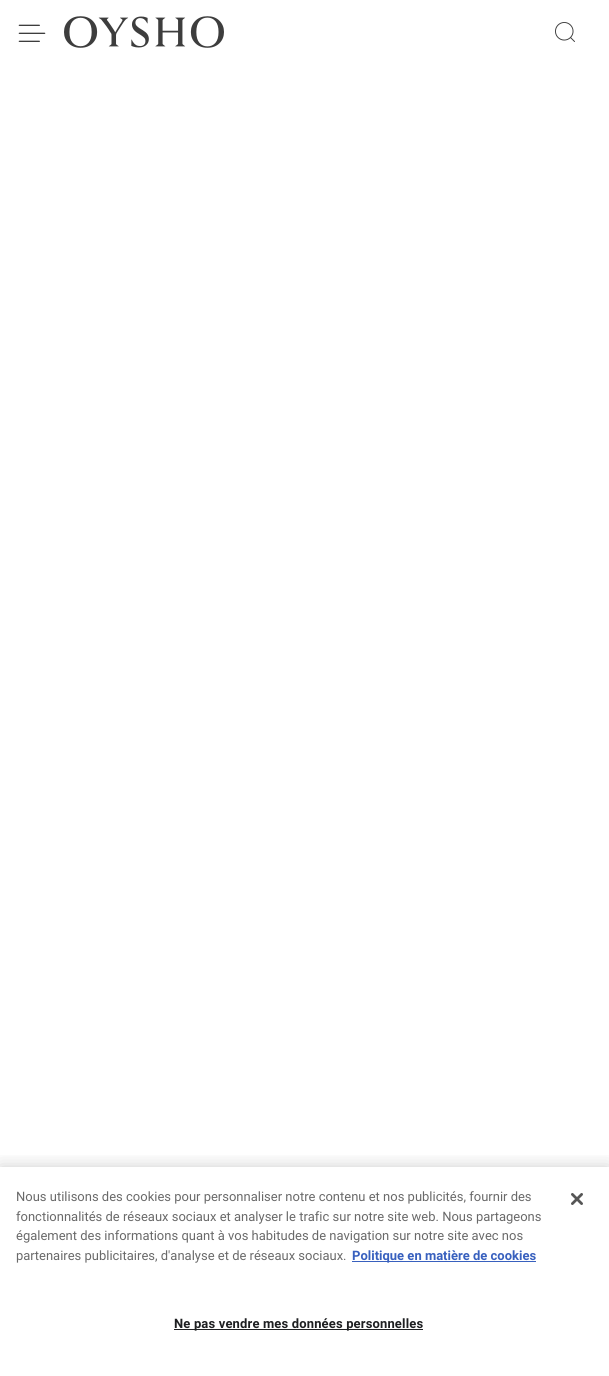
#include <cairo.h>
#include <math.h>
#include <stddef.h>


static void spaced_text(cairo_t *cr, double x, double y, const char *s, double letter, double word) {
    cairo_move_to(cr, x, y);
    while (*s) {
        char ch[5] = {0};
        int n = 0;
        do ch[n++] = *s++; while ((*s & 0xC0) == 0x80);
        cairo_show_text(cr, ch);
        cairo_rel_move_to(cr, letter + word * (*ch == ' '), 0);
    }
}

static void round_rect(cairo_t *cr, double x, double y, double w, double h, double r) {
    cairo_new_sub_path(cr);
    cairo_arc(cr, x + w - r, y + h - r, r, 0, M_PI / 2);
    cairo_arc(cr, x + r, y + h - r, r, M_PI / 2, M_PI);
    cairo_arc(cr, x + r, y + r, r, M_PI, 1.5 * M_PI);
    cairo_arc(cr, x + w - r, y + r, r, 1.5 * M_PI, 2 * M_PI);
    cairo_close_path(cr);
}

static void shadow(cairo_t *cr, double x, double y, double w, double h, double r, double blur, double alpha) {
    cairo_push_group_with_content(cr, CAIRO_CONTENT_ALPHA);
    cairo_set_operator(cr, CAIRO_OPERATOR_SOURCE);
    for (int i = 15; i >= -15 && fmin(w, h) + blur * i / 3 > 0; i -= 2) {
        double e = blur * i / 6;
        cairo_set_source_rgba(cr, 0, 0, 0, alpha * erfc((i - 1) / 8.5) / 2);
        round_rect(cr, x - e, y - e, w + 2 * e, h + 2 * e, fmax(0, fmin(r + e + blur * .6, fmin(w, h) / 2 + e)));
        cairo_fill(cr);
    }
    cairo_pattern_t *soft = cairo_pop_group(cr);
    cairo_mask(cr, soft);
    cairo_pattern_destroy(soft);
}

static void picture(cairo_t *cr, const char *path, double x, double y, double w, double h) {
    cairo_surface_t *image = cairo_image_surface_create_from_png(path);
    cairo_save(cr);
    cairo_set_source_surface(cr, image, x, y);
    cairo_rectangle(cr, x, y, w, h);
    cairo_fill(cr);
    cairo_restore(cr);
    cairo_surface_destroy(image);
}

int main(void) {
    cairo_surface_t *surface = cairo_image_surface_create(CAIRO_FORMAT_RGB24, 609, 1376);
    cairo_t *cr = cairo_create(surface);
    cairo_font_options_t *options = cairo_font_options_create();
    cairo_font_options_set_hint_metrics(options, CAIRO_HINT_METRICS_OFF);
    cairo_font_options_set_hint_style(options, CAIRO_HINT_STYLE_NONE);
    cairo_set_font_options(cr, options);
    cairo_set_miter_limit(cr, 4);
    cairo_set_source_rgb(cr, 1, 1, 1);
    cairo_paint(cr);
    picture(cr, "img1.png", 18, 24, 28, 18);
    picture(cr, "img2.png", 64, 16, 160, 32);
    picture(cr, "img3.png", 555, 22, 20, 20);
    cairo_save(cr);
    cairo_rectangle(cr, 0, 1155, 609, 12);
    cairo_clip(cr);
    cairo_set_source_rgb(cr, 0, 0, 0);
    shadow(cr, 0, 1167, 609, 209, 0, 9, 0.2);
    cairo_restore(cr);
    cairo_select_font_face(cr, "Roboto", CAIRO_FONT_SLANT_NORMAL, CAIRO_FONT_WEIGHT_NORMAL);
    cairo_set_font_size(cr, 13);
    cairo_set_source_rgb(cr, 0.412, 0.412, 0.412);
    cairo_move_to(cr, 16, 1201);
    cairo_show_text(cr, "Nous utilisons des cookies pour personnaliser notre contenu et nos publicités, fournir des");
    cairo_move_to(cr, 16, 1221);
    cairo_show_text(cr, "fonctionnalités de réseaux sociaux et analyser le trafic sur notre site web. Nous partageons");
    cairo_move_to(cr, 16, 1240);
    cairo_show_text(cr, "également des informations quant à vos habitudes de navigation sur notre site avec nos");
    cairo_move_to(cr, 16, 1260);
    cairo_show_text(cr, "partenaires publicitaires, d'analyse et de réseaux sociaux.");
    cairo_set_source_rgb(cr, 0.22, 0.376, 0.745);
    cairo_rectangle(cr, 352, 1261, 184, 1);
    cairo_fill(cr);
    cairo_select_font_face(cr, "Roboto", CAIRO_FONT_SLANT_NORMAL, CAIRO_FONT_WEIGHT_BOLD);
    cairo_move_to(cr, 352, 1260);
    cairo_show_text(cr, "Politique en matière de cookies");
    cairo_set_source_rgb(cr, 0.118, 0.122, 0.129);
    cairo_rectangle(cr, 174, 1329, 249, 1);
    cairo_fill(cr);
    spaced_text(cr, 174, 1328, "Ne pas vendre mes données personnelles", 0.15, 0);
    picture(cr, "img4.png", 571, 1193, 12, 12);
    cairo_surface_write_to_png(surface, "page.png");
    cairo_font_options_destroy(options);
    cairo_destroy(cr);
    cairo_surface_destroy(surface);
    return 0;
}
